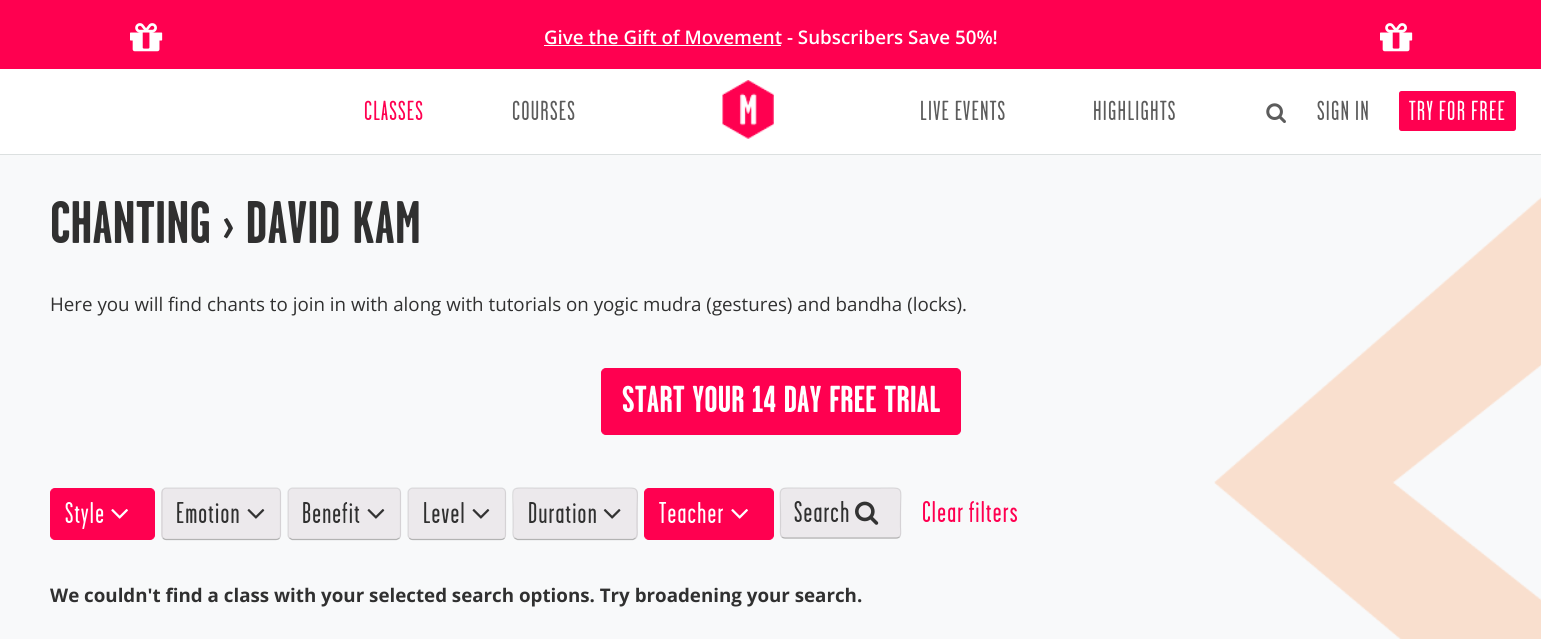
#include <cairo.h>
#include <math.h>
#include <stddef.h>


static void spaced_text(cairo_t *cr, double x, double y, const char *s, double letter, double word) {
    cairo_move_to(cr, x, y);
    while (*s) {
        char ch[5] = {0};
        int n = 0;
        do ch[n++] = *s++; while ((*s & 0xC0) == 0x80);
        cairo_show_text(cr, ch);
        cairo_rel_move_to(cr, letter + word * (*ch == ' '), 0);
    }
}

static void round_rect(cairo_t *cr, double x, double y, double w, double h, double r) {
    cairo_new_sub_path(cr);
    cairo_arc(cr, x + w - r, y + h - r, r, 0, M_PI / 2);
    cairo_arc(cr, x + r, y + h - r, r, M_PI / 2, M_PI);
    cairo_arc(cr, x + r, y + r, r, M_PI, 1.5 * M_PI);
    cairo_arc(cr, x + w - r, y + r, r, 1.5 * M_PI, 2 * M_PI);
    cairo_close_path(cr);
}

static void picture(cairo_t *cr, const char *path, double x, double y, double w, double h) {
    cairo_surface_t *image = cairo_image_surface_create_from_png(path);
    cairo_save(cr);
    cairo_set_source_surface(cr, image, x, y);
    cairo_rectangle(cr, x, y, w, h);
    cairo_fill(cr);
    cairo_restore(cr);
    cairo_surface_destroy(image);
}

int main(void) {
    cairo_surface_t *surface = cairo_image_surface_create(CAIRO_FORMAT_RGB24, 1541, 639);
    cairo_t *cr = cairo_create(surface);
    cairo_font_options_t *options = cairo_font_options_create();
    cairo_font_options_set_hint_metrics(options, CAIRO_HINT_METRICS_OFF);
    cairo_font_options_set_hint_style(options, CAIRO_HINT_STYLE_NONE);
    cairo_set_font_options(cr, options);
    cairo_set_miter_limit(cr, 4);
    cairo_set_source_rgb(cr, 0.969, 0.976, 0.98);
    cairo_paint(cr);
    cairo_set_source_rgb(cr, 1, 0, 0.314);
    cairo_rectangle(cr, 0, 0, 1541, 69);
    cairo_fill(cr);
    picture(cr, "img1.png", 130, 23, 33, 29);
    cairo_select_font_face(cr, "Open Sans SemiBold", CAIRO_FONT_SLANT_NORMAL, CAIRO_FONT_WEIGHT_NORMAL);
    cairo_set_font_size(cr, 18.75);
    cairo_set_source_rgb(cr, 1, 1, 1);
    cairo_move_to(cr, 544, 44);
    cairo_show_text(cr, "Give the Gift of Movement - Subscribers Save 50%!");
    cairo_rectangle(cr, 544, 45, 237, 1);
    cairo_fill(cr);
    picture(cr, "img1.png", 1380, 23, 33, 29);
    cairo_rectangle(cr, 0, 69, 1541, 85);
    cairo_fill(cr);
    cairo_set_source_rgb(cr, 0.863, 0.878, 0.878);
    cairo_rectangle(cr, 0, 154, 1541, 1);
    cairo_fill(cr);
    cairo_select_font_face(cr, "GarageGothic", CAIRO_FONT_SLANT_NORMAL, CAIRO_FONT_WEIGHT_NORMAL);
    cairo_set_font_size(cr, 27.5);
    cairo_set_source_rgb(cr, 1, 0, 0.314);
    spaced_text(cr, 364, 120, "CLASSES", 1.25, 0);
    cairo_set_source_rgb(cr, 0.361, 0.361, 0.361);
    spaced_text(cr, 512, 120, "COURSES", 1.25, 0);
    picture(cr, "img2.png", 722, 80, 52, 59);
    spaced_text(cr, 920, 120, "LIVE EVENTS", 1.25, 0);
    spaced_text(cr, 1093, 120, "HIGHLIGHTS", 1.25, 0);
    picture(cr, "img3.png", 1266, 103, 20, 20);
    spaced_text(cr, 1317, 120, "SIGN IN", 1.25, 0);
    cairo_set_source_rgb(cr, 1, 0, 0.314);
    round_rect(cr, 1399, 91, 117, 40, 2.5);
    cairo_fill(cr);
    cairo_set_source_rgb(cr, 1, 1, 1);
    spaced_text(cr, 1409, 120, "TRY FOR FREE", 1.25, 0);
    picture(cr, "img4.png", 1214, 197, 327, 442);
    cairo_select_font_face(cr, "GarageGothic", CAIRO_FONT_SLANT_NORMAL, CAIRO_FONT_WEIGHT_BOLD);
    cairo_set_font_size(cr, 60);
    cairo_set_source_rgb(cr, 0.188, 0.188, 0.188);
    cairo_move_to(cr, 50, 243);
    cairo_show_text(cr, "CHANTING › DAVID KAM");
    cairo_select_font_face(cr, "Open Sans", CAIRO_FONT_SLANT_NORMAL, CAIRO_FONT_WEIGHT_NORMAL);
    cairo_set_font_size(cr, 18.75);
    cairo_move_to(cr, 50, 311);
    cairo_show_text(cr, "Here you will find chants to join in with along with tutorials on yogic mudra (gestures) and bandha (locks).");
    cairo_set_source_rgb(cr, 1, 0, 0.314);
    round_rect(cr, 601.5, 368.5, 359, 66, 4.5);
    cairo_fill_preserve(cr);
    cairo_set_line_width(cr, 1);
    cairo_stroke(cr);
    cairo_select_font_face(cr, "GarageGothic", CAIRO_FONT_SLANT_NORMAL, CAIRO_FONT_WEIGHT_BOLD);
    cairo_set_font_size(cr, 37.5);
    cairo_set_source_rgb(cr, 1, 1, 1);
    cairo_move_to(cr, 622, 412);
    cairo_show_text(cr, "START YOUR 14 DAY FREE TRIAL");
    cairo_set_source_rgb(cr, 1, 0, 0.314);
    round_rect(cr, 50.5, 488.5, 104, 51, 4.5);
    cairo_fill_preserve(cr);
    cairo_stroke(cr);
    cairo_select_font_face(cr, "GarageGothic", CAIRO_FONT_SLANT_NORMAL, CAIRO_FONT_WEIGHT_NORMAL);
    cairo_set_font_size(cr, 30);
    cairo_set_source_rgb(cr, 1, 1, 1);
    spaced_text(cr, 65, 523, "Style", 1.25, 0);
    picture(cr, "img5.png", 111, 509, 17, 10);
    cairo_set_source_rgb(cr, 0.922, 0.914, 0.922);
    round_rect(cr, 161, 488, 120, 52, 5);
    cairo_fill(cr);
    cairo_new_path(cr);
    cairo_move_to(cr, 279.5, 538);
    cairo_curve_to(cr, 278.5, 539, 277.5, 539.5, 276, 539.5);
    cairo_line_to(cr, 166, 539.5);
    cairo_curve_to(cr, 165, 539.5, 164, 539, 163, 538);
    cairo_set_source_rgb(cr, 0.702, 0.702, 0.702);
    cairo_set_line_width(cr, 1.2);
    cairo_stroke(cr);
    cairo_new_path(cr);
    cairo_move_to(cr, 163, 538);
    cairo_curve_to(cr, 162.5, 537.5, 162, 536, 162, 535);
    cairo_line_to(cr, 162, 492.5);
    cairo_curve_to(cr, 162, 491.5, 162.5, 490, 163, 489.5);
    cairo_curve_to(cr, 164, 488.5, 165, 488, 166, 488);
    cairo_line_to(cr, 276, 488);
    cairo_curve_to(cr, 277.5, 488, 278.5, 488.5, 279.5, 489.5);
    cairo_curve_to(cr, 280, 490, 280.5, 491.5, 280.5, 492.5);
    cairo_line_to(cr, 280.5, 535);
    cairo_curve_to(cr, 280.5, 536, 280, 537.5, 279.5, 538);
    cairo_set_source_rgba(cr, 0, 0, 0, 0.1);
    cairo_stroke(cr);
    cairo_set_source_rgb(cr, 0.188, 0.188, 0.188);
    spaced_text(cr, 176, 523, "Emotion", 1.25, 0);
    picture(cr, "img6.png", 247, 509, 18, 10);
    cairo_set_source_rgb(cr, 0.922, 0.914, 0.922);
    round_rect(cr, 288, 488, 113, 52, 5);
    cairo_fill(cr);
    cairo_new_path(cr);
    cairo_move_to(cr, 399.5, 538);
    cairo_line_to(cr, 396.5, 539.5);
    cairo_line_to(cr, 292, 539.5);
    cairo_line_to(cr, 289.5, 538);
    cairo_set_source_rgb(cr, 0.702, 0.702, 0.702);
    cairo_stroke(cr);
    cairo_new_path(cr);
    cairo_move_to(cr, 289.5, 538);
    cairo_curve_to(cr, 288.5, 537.5, 288, 536, 288, 535);
    cairo_line_to(cr, 288, 492.5);
    cairo_curve_to(cr, 288, 491.5, 288.5, 490, 289.5, 489.5);
    cairo_curve_to(cr, 290, 488.5, 291.5, 488, 292.5, 488);
    cairo_line_to(cr, 396, 488);
    cairo_curve_to(cr, 397.5, 488, 398.5, 488.5, 399.5, 489.5);
    cairo_curve_to(cr, 400, 490, 400.5, 491.5, 400.5, 492.5);
    cairo_line_to(cr, 400.5, 535);
    cairo_curve_to(cr, 400.5, 536, 400, 537.5, 399.5, 538);
    cairo_set_source_rgba(cr, 0, 0, 0, 0.1);
    cairo_stroke(cr);
    cairo_set_source_rgb(cr, 0.188, 0.188, 0.188);
    spaced_text(cr, 302, 523, "Benefit", 1.25, 0);
    picture(cr, "img6.png", 367, 509, 18, 10);
    cairo_set_source_rgb(cr, 0.922, 0.914, 0.922);
    round_rect(cr, 408, 488, 98, 52, 5);
    cairo_fill(cr);
    cairo_new_path(cr);
    cairo_move_to(cr, 504.5, 538);
    cairo_curve_to(cr, 503.5, 539, 502.5, 539.5, 501, 539.5);
    cairo_line_to(cr, 412.5, 539.5);
    cairo_curve_to(cr, 411.5, 539.5, 410, 539, 409.5, 538);
    cairo_set_source_rgb(cr, 0.702, 0.702, 0.702);
    cairo_stroke(cr);
    cairo_new_path(cr);
    cairo_move_to(cr, 409.5, 538);
    cairo_curve_to(cr, 408.5, 537.5, 408, 536, 408, 535);
    cairo_line_to(cr, 408, 492.5);
    cairo_curve_to(cr, 408, 491.5, 408.5, 490, 409.5, 489.5);
    cairo_curve_to(cr, 410, 488.5, 411.5, 488, 412.5, 488);
    cairo_line_to(cr, 501, 488);
    cairo_curve_to(cr, 502.5, 488, 503.5, 488.5, 504.5, 489.5);
    cairo_curve_to(cr, 505, 490, 505.5, 491.5, 505.5, 492.5);
    cairo_line_to(cr, 505.5, 535);
    cairo_curve_to(cr, 505.5, 536, 505, 537.5, 504.5, 538);
    cairo_set_source_rgba(cr, 0, 0, 0, 0.1);
    cairo_stroke(cr);
    cairo_set_source_rgb(cr, 0.188, 0.188, 0.188);
    spaced_text(cr, 423, 523, "Level", 1.25, 0);
    picture(cr, "img6.png", 472, 509, 18, 10);
    cairo_set_source_rgb(cr, 0.922, 0.914, 0.922);
    round_rect(cr, 513, 488, 125, 52, 5);
    cairo_fill(cr);
    cairo_new_path(cr);
    cairo_move_to(cr, 635.5, 538);
    cairo_line_to(cr, 633, 539.5);
    cairo_line_to(cr, 536.5, 539.5);
    cairo_line_to(cr, 517.5, 539.5);
    cairo_line_to(cr, 514.5, 538);
    cairo_set_source_rgb(cr, 0.702, 0.702, 0.702);
    cairo_stroke(cr);
    cairo_new_path(cr);
    cairo_move_to(cr, 514.5, 538);
    cairo_curve_to(cr, 512, 535.5, 513, 530, 513, 528);
    cairo_line_to(cr, 513, 514);
    cairo_curve_to(cr, 513, 484, 507.5, 488, 536.5, 488);
    cairo_line_to(cr, 613.5, 488);
    cairo_curve_to(cr, 642.5, 488, 637, 484, 637, 514);
    cairo_line_to(cr, 637, 528);
    cairo_curve_to(cr, 637, 530, 638, 535.5, 635.5, 538);
    cairo_set_source_rgba(cr, 0, 0, 0, 0.1);
    cairo_stroke(cr);
    cairo_set_source_rgb(cr, 0.188, 0.188, 0.188);
    spaced_text(cr, 528, 523, "Duration", 1.25, 0);
    picture(cr, "img7.png", 603, 509, 18, 10);
    cairo_set_source_rgb(cr, 1, 0, 0.314);
    round_rect(cr, 644.5, 488.5, 129, 51, 4.5);
    cairo_fill_preserve(cr);
    cairo_set_line_width(cr, 1);
    cairo_stroke(cr);
    cairo_set_source_rgb(cr, 1, 1, 1);
    spaced_text(cr, 659, 523, "Teacher", 1.25, 0);
    picture(cr, "img5.png", 731, 509, 17, 10);
    cairo_set_source_rgb(cr, 0.922, 0.914, 0.922);
    round_rect(cr, 780, 488, 121, 51, 5);
    cairo_fill(cr);
    cairo_new_path(cr);
    cairo_move_to(cr, 899.5, 537);
    cairo_curve_to(cr, 898.5, 537.5, 897.5, 538, 896, 538);
    cairo_line_to(cr, 785, 538);
    cairo_curve_to(cr, 784, 538, 782.5, 537.5, 782, 537);
    cairo_set_source_rgb(cr, 0.702, 0.702, 0.702);
    cairo_set_line_width(cr, 1.2);
    cairo_stroke(cr);
    cairo_new_path(cr);
    cairo_move_to(cr, 782, 537);
    cairo_curve_to(cr, 779.5, 534.5, 780.5, 529, 780.5, 527);
    cairo_line_to(cr, 780.5, 513);
    cairo_curve_to(cr, 780.5, 484.5, 775, 488, 803.5, 488);
    cairo_line_to(cr, 877.5, 488);
    cairo_curve_to(cr, 906, 488, 900.5, 484.5, 900.5, 513);
    cairo_line_to(cr, 900.5, 527);
    cairo_curve_to(cr, 900.5, 529, 901.5, 534.5, 899.5, 537);
    cairo_set_source_rgba(cr, 0, 0, 0, 0.1);
    cairo_stroke(cr);
    cairo_set_source_rgb(cr, 0.188, 0.188, 0.188);
    spaced_text(cr, 794, 522, "Search", 1.25, 0);
    picture(cr, "img8.png", 855, 501, 24, 24);
    cairo_set_source_rgb(cr, 1, 0, 0.314);
    spaced_text(cr, 922, 522, "Clear filters", 1.25, 0);
    cairo_select_font_face(cr, "Open Sans", CAIRO_FONT_SLANT_NORMAL, CAIRO_FONT_WEIGHT_BOLD);
    cairo_set_font_size(cr, 18.75);
    cairo_set_source_rgb(cr, 0.188, 0.188, 0.188);
    cairo_move_to(cr, 50, 602);
    cairo_show_text(cr, "We couldn't find a class with your selected search options. Try broadening your search.");
    cairo_surface_write_to_png(surface, "page.png");
    cairo_font_options_destroy(options);
    cairo_destroy(cr);
    cairo_surface_destroy(surface);
    return 0;
}
